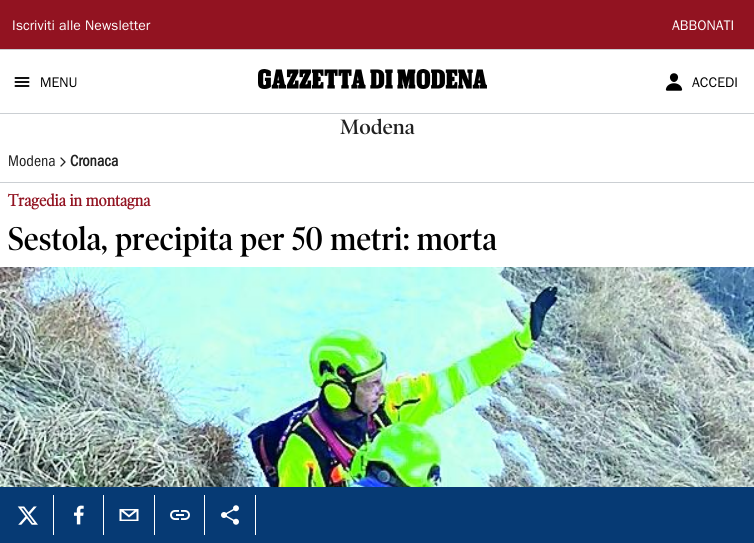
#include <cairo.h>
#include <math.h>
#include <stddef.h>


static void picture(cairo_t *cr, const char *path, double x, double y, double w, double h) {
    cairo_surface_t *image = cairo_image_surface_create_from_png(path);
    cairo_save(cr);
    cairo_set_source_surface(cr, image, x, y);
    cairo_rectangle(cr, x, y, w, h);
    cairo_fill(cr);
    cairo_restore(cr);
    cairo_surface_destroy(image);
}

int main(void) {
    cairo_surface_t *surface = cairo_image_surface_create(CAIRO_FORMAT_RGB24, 754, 543);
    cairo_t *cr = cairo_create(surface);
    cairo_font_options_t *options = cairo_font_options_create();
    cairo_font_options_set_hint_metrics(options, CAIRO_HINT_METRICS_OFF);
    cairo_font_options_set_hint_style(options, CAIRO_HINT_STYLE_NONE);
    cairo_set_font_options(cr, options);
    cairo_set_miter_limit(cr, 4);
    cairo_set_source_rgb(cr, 1, 1, 1);
    cairo_paint(cr);
    cairo_set_source_rgb(cr, 0.573, 0.078, 0.129);
    cairo_rectangle(cr, 0, 0, 754, 49);
    cairo_fill(cr);
    cairo_set_source_rgb(cr, 0.796, 0.812, 0.827);
    cairo_rectangle(cr, 0, 49, 754, 1);
    cairo_fill(cr);
    cairo_select_font_face(cr, "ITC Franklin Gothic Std", CAIRO_FONT_SLANT_NORMAL, CAIRO_FONT_WEIGHT_NORMAL);
    cairo_set_font_size(cr, 14);
    cairo_set_source_rgb(cr, 1, 1, 1);
    cairo_move_to(cr, 12, 30);
    cairo_show_text(cr, "Iscriviti alle Newsletter");
    cairo_move_to(cr, 672, 30);
    cairo_show_text(cr, "ABBONATI");
    cairo_set_source_rgb(cr, 0.796, 0.812, 0.827);
    cairo_rectangle(cr, 0, 113, 754, 1);
    cairo_fill(cr);
    cairo_new_path(cr);
    cairo_move_to(cr, 15.5, 78);
    cairo_line_to(cr, 28.5, 78);
    cairo_move_to(cr, 15.5, 82);
    cairo_line_to(cr, 28.5, 82);
    cairo_move_to(cr, 15.5, 86);
    cairo_line_to(cr, 28.5, 86);
    cairo_set_source_rgb(cr, 0, 0, 0);
    cairo_set_line_width(cr, 1.9);
    cairo_set_line_cap(cr, CAIRO_LINE_CAP_ROUND);
    cairo_stroke(cr);
    cairo_move_to(cr, 40, 87);
    cairo_show_text(cr, "MENU");
    picture(cr, "img1.png", 258, 69, 229, 20);
    picture(cr, "img2.png", 665, 73, 18, 18);
    cairo_move_to(cr, 692, 87);
    cairo_show_text(cr, "ACCEDI");
    cairo_select_font_face(cr, "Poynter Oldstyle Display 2 SemiBold", CAIRO_FONT_SLANT_NORMAL, CAIRO_FONT_WEIGHT_NORMAL);
    cairo_set_font_size(cr, 21);
    cairo_set_source_rgb(cr, 0.129, 0.129, 0.129);
    cairo_move_to(cr, 340, 134);
    cairo_show_text(cr, "Modena");
    cairo_set_source_rgb(cr, 0.796, 0.812, 0.827);
    cairo_rectangle(cr, 0, 182, 754, 1);
    cairo_fill(cr);
    cairo_select_font_face(cr, "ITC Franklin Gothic", CAIRO_FONT_SLANT_NORMAL, CAIRO_FONT_WEIGHT_NORMAL);
    cairo_set_font_size(cr, 16);
    cairo_set_source_rgb(cr, 0.129, 0.129, 0.129);
    cairo_move_to(cr, 8, 166);
    cairo_show_text(cr, "Modena");
    cairo_new_path(cr);
    cairo_move_to(cr, 61, 158);
    cairo_line_to(cr, 65, 162);
    cairo_line_to(cr, 61, 166);
    cairo_set_line_width(cr, 1.3);
    cairo_set_line_join(cr, CAIRO_LINE_JOIN_ROUND);
    cairo_stroke(cr);
    cairo_select_font_face(cr, "ITC Franklin Gothic", CAIRO_FONT_SLANT_NORMAL, CAIRO_FONT_WEIGHT_BOLD);
    cairo_move_to(cr, 70, 166);
    cairo_show_text(cr, "Cronaca");
    cairo_select_font_face(cr, "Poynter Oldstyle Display", CAIRO_FONT_SLANT_NORMAL, CAIRO_FONT_WEIGHT_BOLD);
    cairo_set_font_size(cr, 16.75);
    cairo_set_source_rgb(cr, 0.573, 0.078, 0.129);
    cairo_move_to(cr, 8, 206);
    cairo_show_text(cr, "Tragedia in montagna");
    cairo_select_font_face(cr, "Poynter Oldstyle Display SemiBold", CAIRO_FONT_SLANT_NORMAL, CAIRO_FONT_WEIGHT_NORMAL);
    cairo_set_font_size(cr, 33.3);
    cairo_set_source_rgb(cr, 0, 0, 0);
    cairo_move_to(cr, 8, 250);
    cairo_show_text(cr, "Sestola, precipita per 50 metri: morta");
    picture(cr, "img3.png", 0, 267, 754, 220);
    cairo_set_source_rgb(cr, 0.024, 0.227, 0.455);
    cairo_rectangle(cr, 0, 487, 754, 56);
    cairo_fill(cr);
    picture(cr, "img4.png", 17, 506, 21, 19);
    cairo_set_source_rgb(cr, 1, 1, 1);
    cairo_rectangle(cr, 53, 495, 1, 40);
    cairo_fill(cr);
    picture(cr, "img5.png", 74, 505, 10, 20);
    cairo_rectangle(cr, 103, 495, 1, 40);
    cairo_fill(cr);
    cairo_new_path(cr);
    cairo_move_to(cr, 119.5, 509);
    cairo_line_to(cr, 119.5, 521);
    cairo_line_to(cr, 138.5, 521);
    cairo_line_to(cr, 138.5, 509);
    cairo_close_path(cr);
    cairo_move_to(cr, 134.5, 510.5);
    cairo_line_to(cr, 129, 515);
    cairo_line_to(cr, 123.5, 510.5);
    cairo_close_path(cr);
    cairo_move_to(cr, 121.5, 519.5);
    cairo_line_to(cr, 121.5, 511.5);
    cairo_line_to(cr, 129, 517.5);
    cairo_line_to(cr, 136.5, 511.5);
    cairo_line_to(cr, 136.5, 519.5);
    cairo_close_path(cr);
    cairo_fill(cr);
    cairo_rectangle(cr, 154, 495, 1, 40);
    cairo_fill(cr);
    picture(cr, "img6.png", 170, 510, 20, 10);
    cairo_rectangle(cr, 204, 495, 1, 40);
    cairo_fill(cr);
    picture(cr, "img7.png", 221, 505, 18, 20);
    cairo_rectangle(cr, 255, 495, 1, 40);
    cairo_fill(cr);
    cairo_surface_write_to_png(surface, "page.png");
    cairo_font_options_destroy(options);
    cairo_destroy(cr);
    cairo_surface_destroy(surface);
    return 0;
}
